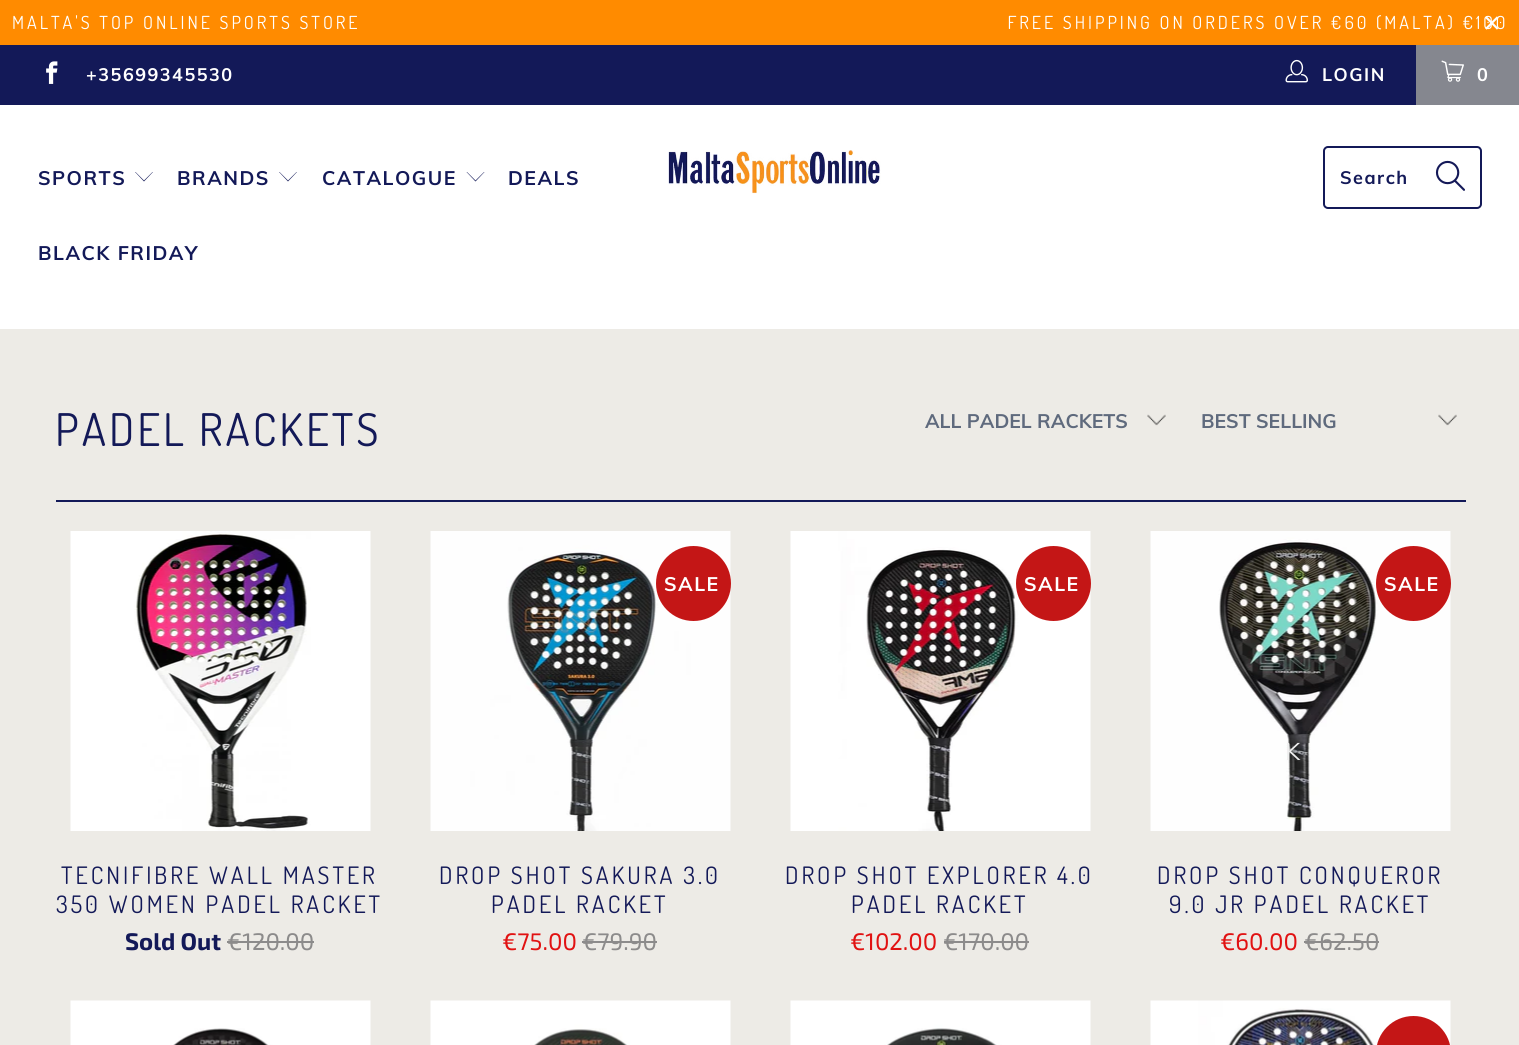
#include <cairo.h>
#include <math.h>
#include <stddef.h>


static void spaced_text(cairo_t *cr, double x, double y, const char *s, double letter, double word) {
    cairo_move_to(cr, x, y);
    while (*s) {
        char ch[5] = {0};
        int n = 0;
        do ch[n++] = *s++; while ((*s & 0xC0) == 0x80);
        cairo_show_text(cr, ch);
        cairo_rel_move_to(cr, letter + word * (*ch == ' '), 0);
    }
}

static void round_rect(cairo_t *cr, double x, double y, double w, double h, double r) {
    cairo_new_sub_path(cr);
    cairo_arc(cr, x + w - r, y + h - r, r, 0, M_PI / 2);
    cairo_arc(cr, x + r, y + h - r, r, M_PI / 2, M_PI);
    cairo_arc(cr, x + r, y + r, r, M_PI, 1.5 * M_PI);
    cairo_arc(cr, x + w - r, y + r, r, 1.5 * M_PI, 2 * M_PI);
    cairo_close_path(cr);
}

static void picture(cairo_t *cr, const char *path, double x, double y, double w, double h) {
    cairo_surface_t *image = cairo_image_surface_create_from_png(path);
    cairo_save(cr);
    cairo_set_source_surface(cr, image, x, y);
    cairo_rectangle(cr, x, y, w, h);
    cairo_fill(cr);
    cairo_restore(cr);
    cairo_surface_destroy(image);
}

int main(void) {
    cairo_surface_t *surface = cairo_image_surface_create(CAIRO_FORMAT_RGB24, 1519, 1045);
    cairo_t *cr = cairo_create(surface);
    cairo_font_options_t *options = cairo_font_options_create();
    cairo_font_options_set_hint_metrics(options, CAIRO_HINT_METRICS_OFF);
    cairo_font_options_set_hint_style(options, CAIRO_HINT_STYLE_NONE);
    cairo_set_font_options(cr, options);
    cairo_set_miter_limit(cr, 4);
    cairo_set_source_rgb(cr, 0.929, 0.918, 0.902);
    cairo_paint(cr);
    cairo_set_source_rgb(cr, 1, 0.545, 0);
    cairo_rectangle(cr, 0, 0, 1519, 45);
    cairo_fill(cr);
    cairo_select_font_face(cr, "Dosis", CAIRO_FONT_SLANT_NORMAL, CAIRO_FONT_WEIGHT_NORMAL);
    cairo_set_font_size(cr, 18);
    cairo_set_source_rgb(cr, 1, 1, 1);
    spaced_text(cr, 12, 29, "MALTA'S TOP ONLINE SPORTS STORE                                                                                                  FREE SHIPPING ON ORDERS OVER €60 (MALTA) €100", 3, 0);
    cairo_select_font_face(cr, "Liberation Sans", CAIRO_FONT_SLANT_NORMAL, CAIRO_FONT_WEIGHT_NORMAL);
    cairo_set_font_size(cr, 30);
    spaced_text(cr, 1483, 33, "×", 3, 0);
    cairo_set_source_rgb(cr, 0.078, 0.098, 0.345);
    cairo_rectangle(cr, 0, 45, 1416, 60);
    cairo_fill(cr);
    picture(cr, "img1.png", 46, 61, 12, 23);
    cairo_select_font_face(cr, "Muli", CAIRO_FONT_SLANT_NORMAL, CAIRO_FONT_WEIGHT_BOLD);
    cairo_set_font_size(cr, 18);
    cairo_set_source_rgb(cr, 1, 1, 1);
    spaced_text(cr, 86, 81, "+35699345530", 1.5, 0);
    picture(cr, "img2.png", 1285, 59, 23, 24);
    spaced_text(cr, 1322, 81, "LOGIN", 1.5, 0);
    cairo_set_source_rgb(cr, 0.522, 0.529, 0.561);
    cairo_rectangle(cr, 1416, 45, 103, 60);
    cairo_fill(cr);
    picture(cr, "img3.png", 1441, 60, 23, 22);
    cairo_set_source_rgb(cr, 1, 1, 1);
    spaced_text(cr, 1477, 81, "0", 1.5, 0);
    cairo_rectangle(cr, 0, 105, 1519, 224);
    cairo_fill(cr);
    cairo_set_font_size(cr, 19.5);
    cairo_set_source_rgb(cr, 0.078, 0.098, 0.345);
    spaced_text(cr, 38, 185, "SPORTS", 1.5, 0);
    cairo_new_path(cr);
    cairo_move_to(cr, 144, 181.5);
    cairo_line_to(cr, 135, 172);
    cairo_line_to(cr, 135.5, 172);
    cairo_line_to(cr, 144, 180.5);
    cairo_line_to(cr, 152.5, 172);
    cairo_line_to(cr, 153, 172);
    cairo_close_path(cr);
    cairo_fill(cr);
    spaced_text(cr, 177, 185, "BRANDS", 1.5, 0);
    cairo_new_path(cr);
    cairo_move_to(cr, 288, 181.5);
    cairo_line_to(cr, 279, 172);
    cairo_line_to(cr, 279.5, 172);
    cairo_line_to(cr, 288, 180.5);
    cairo_line_to(cr, 296.5, 172);
    cairo_line_to(cr, 297, 172);
    cairo_close_path(cr);
    cairo_fill(cr);
    spaced_text(cr, 322, 185, "CATALOGUE", 1.5, 0);
    cairo_new_path(cr);
    cairo_move_to(cr, 475.5, 181.5);
    cairo_line_to(cr, 466.5, 172);
    cairo_line_to(cr, 467, 172);
    cairo_line_to(cr, 475.5, 180.5);
    cairo_line_to(cr, 484, 172);
    cairo_line_to(cr, 484.5, 172);
    cairo_close_path(cr);
    cairo_fill(cr);
    spaced_text(cr, 508, 185, "DEALS", 1.5, 0);
    spaced_text(cr, 38, 260, "BLACK FRIDAY", 1.5, 0);
    picture(cr, "img4.png", 668, 150, 213, 44);
    round_rect(cr, 1324, 147, 157, 61, 4);
    cairo_stroke(cr);
    cairo_set_font_size(cr, 18);
    spaced_text(cr, 1340, 184, "Search", 1.5, 0);
    picture(cr, "img5.png", 1435, 160, 30, 31);
    cairo_select_font_face(cr, "Dosis", CAIRO_FONT_SLANT_NORMAL, CAIRO_FONT_WEIGHT_NORMAL);
    cairo_set_font_size(cr, 45);
    spaced_text(cr, 55, 446, "PADEL RACKETS", 3, 0);
    picture(cr, "img6.png", 1147, 414, 19, 12);
    cairo_select_font_face(cr, "Muli", CAIRO_FONT_SLANT_NORMAL, CAIRO_FONT_WEIGHT_BOLD);
    cairo_set_font_size(cr, 19.5);
    cairo_set_source_rgb(cr, 0.373, 0.416, 0.49);
    cairo_move_to(cr, 925, 428);
    cairo_show_text(cr, "ALL PADEL RACKETS");
    picture(cr, "img6.png", 1438, 414, 19, 12);
    cairo_move_to(cr, 1201, 428);
    cairo_show_text(cr, "BEST SELLING");
    cairo_set_source_rgb(cr, 0.078, 0.098, 0.345);
    cairo_rectangle(cr, 56, 500, 1410, 2);
    cairo_fill(cr);
    picture(cr, "img7.png", 70, 531, 301, 300);
    cairo_select_font_face(cr, "Dosis", CAIRO_FONT_SLANT_NORMAL, CAIRO_FONT_WEIGHT_NORMAL);
    cairo_set_font_size(cr, 24);
    spaced_text(cr, 61, 884, "TECNIFIBRE WALL MASTER", 3, 0);
    spaced_text(cr, 56, 913, "350 WOMEN PADEL RACKET", 3, 0);
    cairo_select_font_face(cr, "Exo 2", CAIRO_FONT_SLANT_NORMAL, CAIRO_FONT_WEIGHT_BOLD);
    cairo_move_to(cr, 125, 950);
    cairo_show_text(cr, "Sold Out");
    cairo_select_font_face(cr, "Exo 2", CAIRO_FONT_SLANT_NORMAL, CAIRO_FONT_WEIGHT_NORMAL);
    cairo_set_source_rgb(cr, 0.549, 0.545, 0.545);
    cairo_move_to(cr, 227, 950);
    cairo_show_text(cr, "€120.00");
    cairo_rectangle(cr, 227, 941, 87, 2);
    cairo_fill(cr);
    picture(cr, "img8.png", 430, 531, 301, 300);
    cairo_set_source_rgb(cr, 0.769, 0.086, 0.086);
    cairo_arc(cr, 693.5, 583.5, 37.5, 0, 2 * M_PI);
    cairo_fill(cr);
    cairo_select_font_face(cr, "Muli", CAIRO_FONT_SLANT_NORMAL, CAIRO_FONT_WEIGHT_BOLD);
    cairo_set_font_size(cr, 19.5);
    cairo_set_source_rgb(cr, 1, 1, 1);
    spaced_text(cr, 664, 591, "SALE", 1.5, 0);
    cairo_select_font_face(cr, "Dosis", CAIRO_FONT_SLANT_NORMAL, CAIRO_FONT_WEIGHT_NORMAL);
    cairo_set_font_size(cr, 24);
    cairo_set_source_rgb(cr, 0.078, 0.098, 0.345);
    spaced_text(cr, 439, 884, "DROP SHOT SAKURA 3.0", 3, 0);
    spaced_text(cr, 491, 913, "PADEL RACKET", 3, 0);
    cairo_select_font_face(cr, "Exo 2", CAIRO_FONT_SLANT_NORMAL, CAIRO_FONT_WEIGHT_NORMAL);
    cairo_set_source_rgb(cr, 0.882, 0.071, 0.071);
    cairo_move_to(cr, 502, 950);
    cairo_show_text(cr, "€75.00");
    cairo_set_source_rgb(cr, 0.549, 0.545, 0.545);
    cairo_move_to(cr, 582, 950);
    cairo_show_text(cr, "€79.90");
    cairo_rectangle(cr, 582, 941, 75, 2);
    cairo_fill(cr);
    picture(cr, "img9.png", 790, 531, 301, 300);
    cairo_set_source_rgb(cr, 0.769, 0.086, 0.086);
    cairo_arc(cr, 1053.5, 583.5, 37.5, 0, 2 * M_PI);
    cairo_fill(cr);
    cairo_select_font_face(cr, "Muli", CAIRO_FONT_SLANT_NORMAL, CAIRO_FONT_WEIGHT_BOLD);
    cairo_set_font_size(cr, 19.5);
    cairo_set_source_rgb(cr, 1, 1, 1);
    spaced_text(cr, 1024, 591, "SALE", 1.5, 0);
    cairo_select_font_face(cr, "Dosis", CAIRO_FONT_SLANT_NORMAL, CAIRO_FONT_WEIGHT_NORMAL);
    cairo_set_font_size(cr, 24);
    cairo_set_source_rgb(cr, 0.078, 0.098, 0.345);
    spaced_text(cr, 785, 884, "DROP SHOT EXPLORER 4.0", 3, 0);
    spaced_text(cr, 851, 913, "PADEL RACKET", 3, 0);
    cairo_select_font_face(cr, "Exo 2", CAIRO_FONT_SLANT_NORMAL, CAIRO_FONT_WEIGHT_NORMAL);
    cairo_set_source_rgb(cr, 0.882, 0.071, 0.071);
    cairo_move_to(cr, 850, 950);
    cairo_show_text(cr, "€102.00");
    cairo_set_source_rgb(cr, 0.549, 0.545, 0.545);
    cairo_move_to(cr, 943, 950);
    cairo_show_text(cr, "€170.00");
    cairo_rectangle(cr, 944, 941, 85, 2);
    cairo_fill(cr);
    picture(cr, "img10.png", 1150, 531, 301, 300);
    cairo_set_source_rgb(cr, 0.769, 0.086, 0.086);
    cairo_arc(cr, 1413.5, 583.5, 37.5, 0, 2 * M_PI);
    cairo_fill(cr);
    cairo_select_font_face(cr, "Muli", CAIRO_FONT_SLANT_NORMAL, CAIRO_FONT_WEIGHT_BOLD);
    cairo_set_font_size(cr, 19.5);
    cairo_set_source_rgb(cr, 1, 1, 1);
    spaced_text(cr, 1384, 591, "SALE", 1.5, 0);
    cairo_select_font_face(cr, "Muli", CAIRO_FONT_SLANT_NORMAL, CAIRO_FONT_WEIGHT_NORMAL);
    cairo_set_font_size(cr, 24);
    cairo_set_source_rgb(cr, 0.933, 0.933, 0.933);
    spaced_text(cr, 1285, 760, "K", 1.5, 0);
    cairo_select_font_face(cr, "Dosis", CAIRO_FONT_SLANT_NORMAL, CAIRO_FONT_WEIGHT_NORMAL);
    cairo_set_source_rgb(cr, 0.078, 0.098, 0.345);
    spaced_text(cr, 1157, 884, "DROP SHOT CONQUEROR", 3, 0);
    spaced_text(cr, 1169, 913, "9.0 JR PADEL RACKET", 3, 0);
    cairo_select_font_face(cr, "Exo 2", CAIRO_FONT_SLANT_NORMAL, CAIRO_FONT_WEIGHT_NORMAL);
    cairo_set_source_rgb(cr, 0.882, 0.071, 0.071);
    cairo_move_to(cr, 1220, 950);
    cairo_show_text(cr, "€60.00");
    cairo_set_source_rgb(cr, 0.549, 0.545, 0.545);
    cairo_move_to(cr, 1304, 950);
    cairo_show_text(cr, "€62.50");
    cairo_rectangle(cr, 1304, 941, 75, 2);
    cairo_fill(cr);
    picture(cr, "img11.png", 70, 1000, 301, 45);
    picture(cr, "img12.png", 430, 1000, 301, 45);
    picture(cr, "img13.png", 790, 1000, 301, 45);
    picture(cr, "img14.png", 1150, 1000, 301, 45);
    cairo_set_source_rgb(cr, 0.769, 0.086, 0.086);
    round_rect(cr, 1376, 1016, 75, 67, 37.5);
    cairo_fill(cr);
    cairo_surface_write_to_png(surface, "page.png");
    cairo_font_options_destroy(options);
    cairo_destroy(cr);
    cairo_surface_destroy(surface);
    return 0;
}
